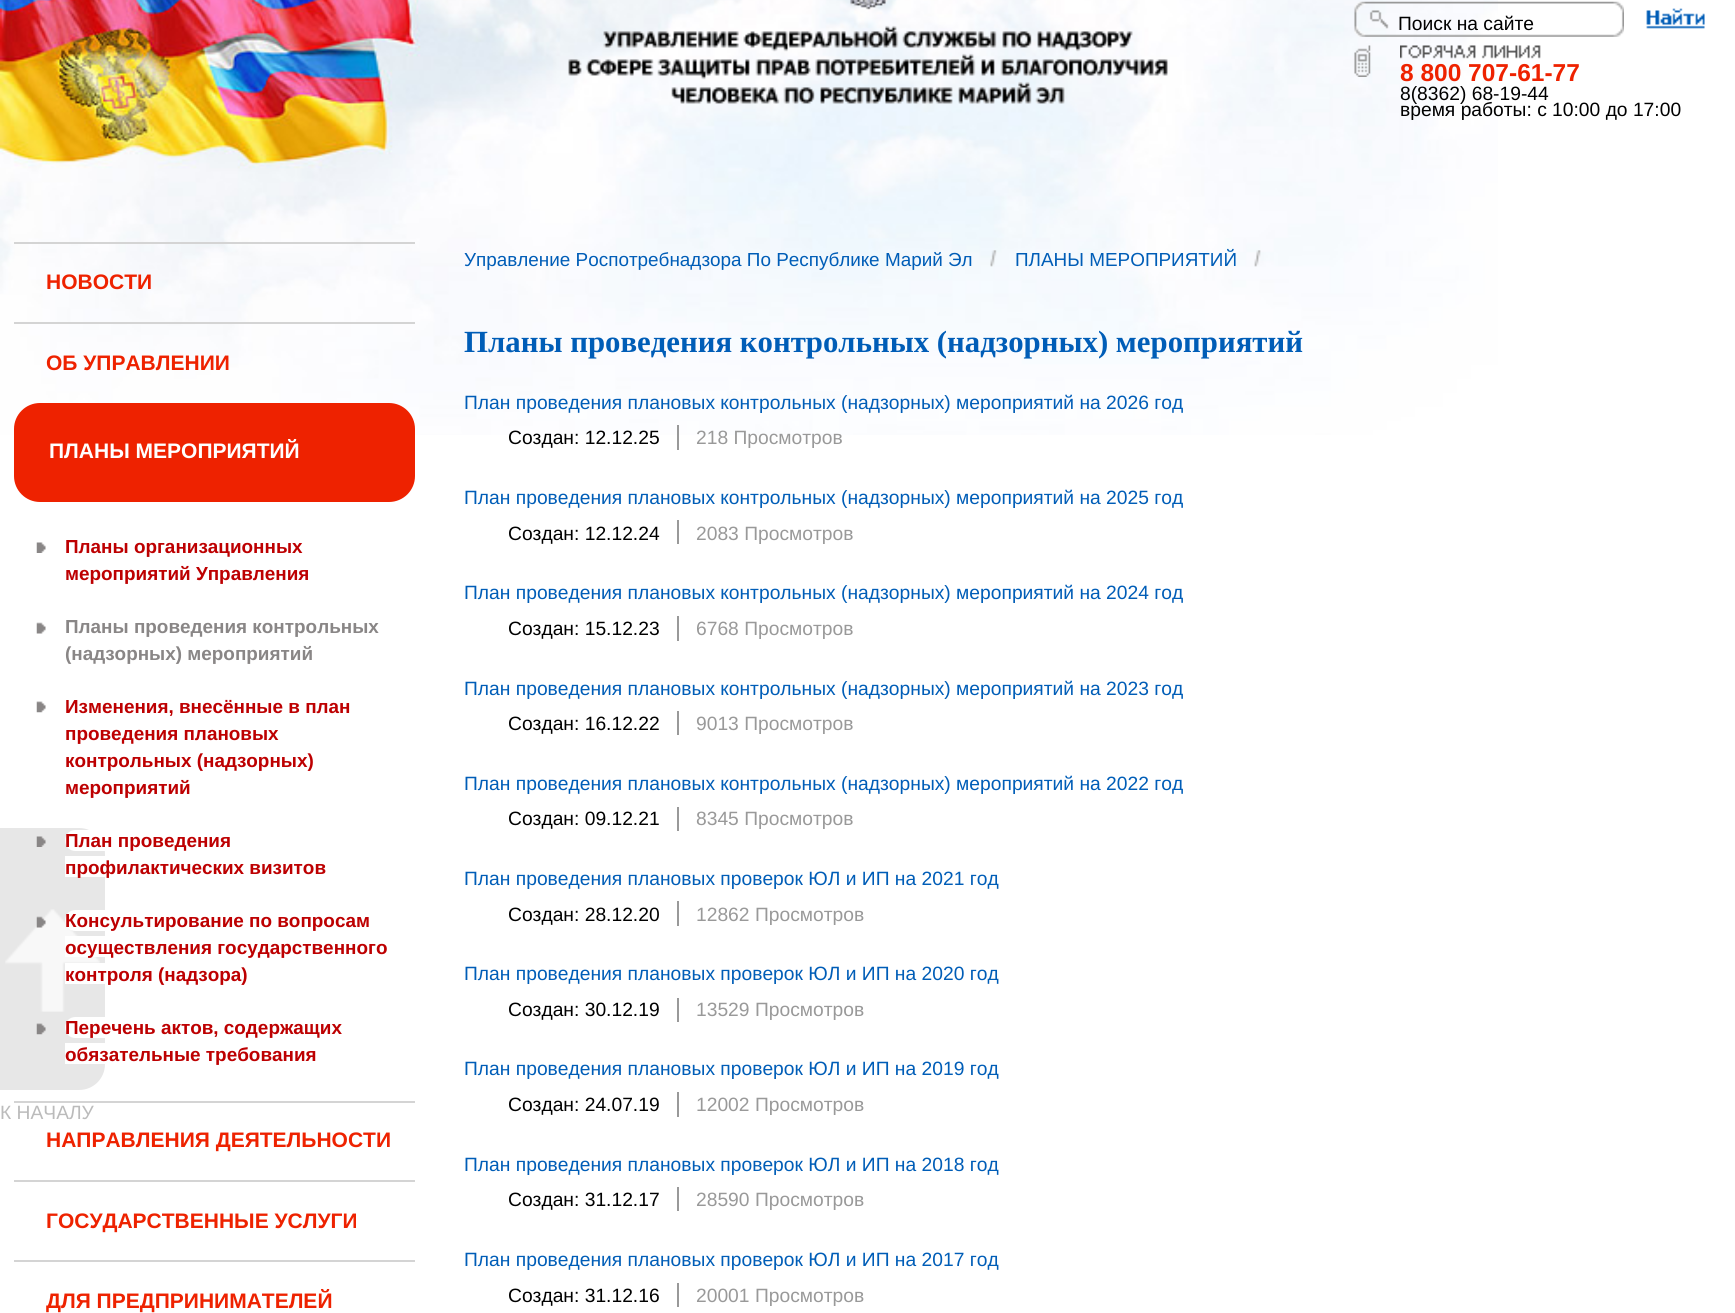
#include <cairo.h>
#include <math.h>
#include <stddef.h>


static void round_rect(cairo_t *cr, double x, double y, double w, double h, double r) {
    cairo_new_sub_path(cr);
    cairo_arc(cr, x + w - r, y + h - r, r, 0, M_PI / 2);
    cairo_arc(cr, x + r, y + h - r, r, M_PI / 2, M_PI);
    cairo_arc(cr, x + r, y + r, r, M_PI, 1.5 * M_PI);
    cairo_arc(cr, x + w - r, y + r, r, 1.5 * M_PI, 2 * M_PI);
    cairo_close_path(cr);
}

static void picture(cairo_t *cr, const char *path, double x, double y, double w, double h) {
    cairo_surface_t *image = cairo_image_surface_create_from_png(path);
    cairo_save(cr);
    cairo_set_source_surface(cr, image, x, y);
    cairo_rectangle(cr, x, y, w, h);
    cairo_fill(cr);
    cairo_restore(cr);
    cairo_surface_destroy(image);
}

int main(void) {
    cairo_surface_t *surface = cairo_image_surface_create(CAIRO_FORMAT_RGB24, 1735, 1313);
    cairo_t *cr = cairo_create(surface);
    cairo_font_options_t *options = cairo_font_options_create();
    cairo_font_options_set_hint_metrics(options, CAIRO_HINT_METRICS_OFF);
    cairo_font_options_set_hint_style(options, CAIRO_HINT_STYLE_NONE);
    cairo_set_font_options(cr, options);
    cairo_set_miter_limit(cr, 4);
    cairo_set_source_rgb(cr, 1, 1, 1);
    cairo_paint(cr);
    picture(cr, "img1.png", 0, 0, 1498, 435);
    picture(cr, "img2.png", 568, 0, 600, 104);
    picture(cr, "img3.png", 1354, 1, 270, 36);
    cairo_select_font_face(cr, "Liberation Sans", CAIRO_FONT_SLANT_NORMAL, CAIRO_FONT_WEIGHT_NORMAL);
    cairo_set_font_size(cr, 19.25);
    cairo_set_source_rgb(cr, 0, 0, 0);
    cairo_move_to(cr, 1398, 30);
    cairo_show_text(cr, "Поиск на сайте");
    picture(cr, "img4.png", 1646, 8, 59, 21);
    picture(cr, "img5.png", 1354, 45, 17, 32);
    picture(cr, "img6.png", 1400, 45, 141, 14);
    cairo_select_font_face(cr, "Liberation Sans", CAIRO_FONT_SLANT_NORMAL, CAIRO_FONT_WEIGHT_BOLD);
    cairo_set_font_size(cr, 24.5);
    cairo_set_source_rgb(cr, 0.933, 0.133, 0);
    cairo_move_to(cr, 1400, 81);
    cairo_show_text(cr, "8 800 707-61-77");
    cairo_select_font_face(cr, "Liberation Sans", CAIRO_FONT_SLANT_NORMAL, CAIRO_FONT_WEIGHT_NORMAL);
    cairo_set_font_size(cr, 19.25);
    cairo_set_source_rgb(cr, 0, 0, 0);
    cairo_move_to(cr, 1400, 100);
    cairo_show_text(cr, "8(8362) 68-19-44");
    cairo_move_to(cr, 1400, 116);
    cairo_show_text(cr, "время работы: с 10:00 до 17:00");
    cairo_set_source_rgb(cr, 0.831, 0.831, 0.831);
    cairo_rectangle(cr, 14, 242, 401, 2);
    cairo_fill(cr);
    cairo_select_font_face(cr, "Liberation Sans", CAIRO_FONT_SLANT_NORMAL, CAIRO_FONT_WEIGHT_BOLD);
    cairo_set_font_size(cr, 21);
    cairo_set_source_rgb(cr, 0.933, 0.133, 0);
    cairo_move_to(cr, 46, 289);
    cairo_show_text(cr, "НОВОСТИ");
    cairo_set_source_rgb(cr, 0.831, 0.831, 0.831);
    cairo_rectangle(cr, 14, 322, 401, 2);
    cairo_fill(cr);
    cairo_set_source_rgb(cr, 0.933, 0.133, 0);
    cairo_move_to(cr, 46, 370);
    cairo_show_text(cr, "ОБ УПРАВЛЕНИИ");
    round_rect(cr, 14, 403, 401, 99, 26);
    cairo_fill(cr);
    cairo_set_source_rgb(cr, 1, 1, 1);
    cairo_move_to(cr, 49, 458);
    cairo_show_text(cr, "ПЛАНЫ МЕРОПРИЯТИЙ");
    picture(cr, "img7.png", 36, 542, 10, 11);
    cairo_set_font_size(cr, 18.9);
    cairo_set_source_rgb(cr, 0.741, 0, 0.004);
    cairo_move_to(cr, 65, 553);
    cairo_show_text(cr, "Планы организационных");
    cairo_move_to(cr, 65, 580);
    cairo_show_text(cr, "мероприятий Управления");
    picture(cr, "img8.png", 36, 622, 10, 12);
    cairo_set_source_rgb(cr, 0.537, 0.525, 0.525);
    cairo_move_to(cr, 65, 633);
    cairo_show_text(cr, "Планы проведения контрольных");
    cairo_move_to(cr, 65, 660);
    cairo_show_text(cr, "(надзорных) мероприятий");
    picture(cr, "img9.png", 36, 701, 10, 12);
    cairo_set_source_rgb(cr, 0.741, 0, 0.004);
    cairo_move_to(cr, 65, 713);
    cairo_show_text(cr, "Изменения, внесённые в план");
    cairo_move_to(cr, 65, 740);
    cairo_show_text(cr, "проведения плановых");
    cairo_move_to(cr, 65, 767);
    cairo_show_text(cr, "контрольных (надзорных)");
    cairo_move_to(cr, 65, 794);
    cairo_show_text(cr, "мероприятий");
    cairo_set_source_rgb(cr, 0.906, 0.906, 0.906);
    cairo_new_path(cr);
    cairo_move_to(cr, 0, 828);
    cairo_line_to(cr, 79, 828);
    cairo_curve_to(cr, 93.5, 828, 105, 839.5, 105, 854);
    cairo_line_to(cr, 105, 1064);
    cairo_curve_to(cr, 105, 1078.5, 93.5, 1090, 79, 1090);
    cairo_line_to(cr, 0, 1090);
    cairo_close_path(cr);
    cairo_fill(cr);
    picture(cr, "img10.png", 36, 836, 10, 11);
    cairo_set_source_rgb(cr, 1, 1, 1);
    cairo_new_path(cr);
    cairo_move_to(cr, 75.5, 830);
    cairo_line_to(cr, 231, 830);
    cairo_line_to(cr, 231, 851);
    cairo_line_to(cr, 75.5, 851);
    cairo_curve_to(cr, 69.5, 851, 65, 846.5, 65, 840.5);
    cairo_curve_to(cr, 65, 834.5, 69.5, 830, 75.5, 830);
    cairo_close_path(cr);
    cairo_fill(cr);
    cairo_set_source_rgb(cr, 0.741, 0, 0.004);
    cairo_move_to(cr, 65, 847);
    cairo_show_text(cr, "План проведения");
    cairo_set_source_rgb(cr, 1, 1, 1);
    cairo_new_path(cr);
    cairo_move_to(cr, 65, 856);
    cairo_line_to(cr, 315.5, 856);
    cairo_curve_to(cr, 321.5, 856, 326, 860.5, 326, 866.5);
    cairo_curve_to(cr, 326, 872.5, 321.5, 877, 315.5, 877);
    cairo_line_to(cr, 65, 877);
    cairo_close_path(cr);
    cairo_fill(cr);
    cairo_set_source_rgb(cr, 0.741, 0, 0.004);
    cairo_move_to(cr, 65, 874);
    cairo_show_text(cr, "профилактических визитов");
    picture(cr, "img15.png", 5, 909, 95, 103);
    picture(cr, "img11.png", 36, 916, 10, 12);
    cairo_set_source_rgb(cr, 1, 1, 1);
    cairo_new_path(cr);
    cairo_move_to(cr, 75.5, 910);
    cairo_line_to(cr, 369, 910);
    cairo_line_to(cr, 369, 931);
    cairo_line_to(cr, 75.5, 931);
    cairo_curve_to(cr, 69.5, 931, 65, 926.5, 65, 920.5);
    cairo_curve_to(cr, 65, 914.5, 69.5, 910, 75.5, 910);
    cairo_close_path(cr);
    cairo_fill(cr);
    cairo_set_source_rgb(cr, 0.741, 0, 0.004);
    cairo_move_to(cr, 65, 927);
    cairo_show_text(cr, "Консультирование по вопросам");
    cairo_set_source_rgb(cr, 1, 1, 1);
    cairo_rectangle(cr, 65, 936, 40, 21);
    cairo_fill(cr);
    cairo_set_source_rgb(cr, 0.741, 0, 0.004);
    cairo_move_to(cr, 65, 954);
    cairo_show_text(cr, "осуществления государственного");
    cairo_set_source_rgb(cr, 1, 1, 1);
    cairo_new_path(cr);
    cairo_move_to(cr, 65, 963);
    cairo_line_to(cr, 236.5, 963);
    cairo_curve_to(cr, 242.5, 963, 247, 967.5, 247, 973.5);
    cairo_curve_to(cr, 247, 979.5, 242.5, 984, 236.5, 984);
    cairo_line_to(cr, 65, 984);
    cairo_close_path(cr);
    cairo_fill(cr);
    cairo_set_source_rgb(cr, 0.741, 0, 0.004);
    cairo_move_to(cr, 65, 981);
    cairo_show_text(cr, "контроля (надзора)");
    picture(cr, "img12.png", 36, 1023, 10, 12);
    cairo_set_source_rgb(cr, 1, 1, 1);
    cairo_new_path(cr);
    cairo_move_to(cr, 75.5, 1017);
    cairo_line_to(cr, 341, 1017);
    cairo_line_to(cr, 341, 1038);
    cairo_line_to(cr, 75.5, 1038);
    cairo_curve_to(cr, 69.5, 1038, 65, 1033.5, 65, 1027.5);
    cairo_curve_to(cr, 65, 1021.5, 69.5, 1017, 75.5, 1017);
    cairo_close_path(cr);
    cairo_fill(cr);
    cairo_set_source_rgb(cr, 0.741, 0, 0.004);
    cairo_move_to(cr, 65, 1034);
    cairo_show_text(cr, "Перечень актов, содержащих");
    cairo_set_source_rgb(cr, 1, 1, 1);
    cairo_new_path(cr);
    cairo_move_to(cr, 65, 1043);
    cairo_line_to(cr, 306.5, 1043);
    cairo_curve_to(cr, 312.5, 1043, 317, 1047.5, 317, 1053.5);
    cairo_curve_to(cr, 317, 1059.5, 312.5, 1064, 306.5, 1064);
    cairo_line_to(cr, 65, 1064);
    cairo_close_path(cr);
    cairo_fill(cr);
    cairo_set_source_rgb(cr, 0.741, 0, 0.004);
    cairo_move_to(cr, 65, 1061);
    cairo_show_text(cr, "обязательные требования");
    cairo_set_source_rgb(cr, 0.831, 0.831, 0.831);
    cairo_rectangle(cr, 14, 1101, 401, 2);
    cairo_fill(cr);
    cairo_set_font_size(cr, 21);
    cairo_set_source_rgb(cr, 0.933, 0.133, 0);
    cairo_move_to(cr, 46, 1147);
    cairo_show_text(cr, "НАПРАВЛЕНИЯ ДЕЯТЕЛЬНОСТИ");
    cairo_set_source_rgb(cr, 0.831, 0.831, 0.831);
    cairo_rectangle(cr, 14, 1180, 401, 2);
    cairo_fill(cr);
    cairo_set_source_rgb(cr, 0.933, 0.133, 0);
    cairo_move_to(cr, 46, 1228);
    cairo_show_text(cr, "ГОСУДАРСТВЕННЫЕ УСЛУГИ");
    cairo_set_source_rgb(cr, 0.831, 0.831, 0.831);
    cairo_rectangle(cr, 14, 1260, 401, 2);
    cairo_fill(cr);
    cairo_set_source_rgb(cr, 0.933, 0.133, 0);
    cairo_move_to(cr, 46, 1308);
    cairo_show_text(cr, "ДЛЯ ПРЕДПРИНИМАТЕЛЕЙ");
    picture(cr, "img13.png", 990, 250, 7, 17);
    cairo_select_font_face(cr, "Liberation Sans", CAIRO_FONT_SLANT_NORMAL, CAIRO_FONT_WEIGHT_NORMAL);
    cairo_set_font_size(cr, 18.9);
    cairo_set_source_rgb(cr, 0, 0.365, 0.718);
    cairo_move_to(cr, 464, 266);
    cairo_show_text(cr, "Управление Роспотребнадзора По Республике Марий Эл");
    picture(cr, "img14.png", 1254, 250, 7, 17);
    cairo_move_to(cr, 1015, 266);
    cairo_show_text(cr, "ПЛАНЫ МЕРОПРИЯТИЙ");
    cairo_select_font_face(cr, "Liberation Serif", CAIRO_FONT_SLANT_NORMAL, CAIRO_FONT_WEIGHT_BOLD);
    cairo_set_font_size(cr, 30.8);
    cairo_move_to(cr, 464, 352);
    cairo_show_text(cr, "Планы проведения контрольных (надзорных) мероприятий");
    cairo_select_font_face(cr, "Liberation Sans", CAIRO_FONT_SLANT_NORMAL, CAIRO_FONT_WEIGHT_NORMAL);
    cairo_set_font_size(cr, 19.25);
    cairo_move_to(cr, 464, 409);
    cairo_show_text(cr, "План проведения плановых контрольных (надзорных) мероприятий на 2026 год");
    cairo_set_source_rgb(cr, 0, 0, 0);
    cairo_move_to(cr, 508, 444);
    cairo_show_text(cr, "Создан: 12.12.25");
    cairo_set_source_rgb(cr, 0.6, 0.6, 0.6);
    cairo_rectangle(cr, 677, 425, 2, 25);
    cairo_fill(cr);
    cairo_move_to(cr, 696, 444);
    cairo_show_text(cr, "218 Просмотров");
    cairo_set_source_rgb(cr, 0, 0.365, 0.718);
    cairo_move_to(cr, 464, 504);
    cairo_show_text(cr, "План проведения плановых контрольных (надзорных) мероприятий на 2025 год");
    cairo_set_source_rgb(cr, 0, 0, 0);
    cairo_move_to(cr, 508, 540);
    cairo_show_text(cr, "Создан: 12.12.24");
    cairo_set_source_rgb(cr, 0.6, 0.6, 0.6);
    cairo_rectangle(cr, 677, 520, 2, 24);
    cairo_fill(cr);
    cairo_move_to(cr, 696, 540);
    cairo_show_text(cr, "2083 Просмотров");
    cairo_set_source_rgb(cr, 0, 0.365, 0.718);
    cairo_move_to(cr, 464, 599);
    cairo_show_text(cr, "План проведения плановых контрольных (надзорных) мероприятий на 2024 год");
    cairo_set_source_rgb(cr, 0, 0, 0);
    cairo_move_to(cr, 508, 635);
    cairo_show_text(cr, "Создан: 15.12.23");
    cairo_set_source_rgb(cr, 0.6, 0.6, 0.6);
    cairo_rectangle(cr, 677, 616, 2, 25);
    cairo_fill(cr);
    cairo_move_to(cr, 696, 635);
    cairo_show_text(cr, "6768 Просмотров");
    cairo_set_source_rgb(cr, 0, 0.365, 0.718);
    cairo_move_to(cr, 464, 695);
    cairo_show_text(cr, "План проведения плановых контрольных (надзорных) мероприятий на 2023 год");
    cairo_set_source_rgb(cr, 0, 0, 0);
    cairo_move_to(cr, 508, 730);
    cairo_show_text(cr, "Создан: 16.12.22");
    cairo_set_source_rgb(cr, 0.6, 0.6, 0.6);
    cairo_rectangle(cr, 677, 711, 2, 24);
    cairo_fill(cr);
    cairo_move_to(cr, 696, 730);
    cairo_show_text(cr, "9013 Просмотров");
    cairo_set_source_rgb(cr, 0, 0.365, 0.718);
    cairo_move_to(cr, 464, 790);
    cairo_show_text(cr, "План проведения плановых контрольных (надзорных) мероприятий на 2022 год");
    cairo_set_source_rgb(cr, 0, 0, 0);
    cairo_move_to(cr, 508, 825);
    cairo_show_text(cr, "Создан: 09.12.21");
    cairo_set_source_rgb(cr, 0.6, 0.6, 0.6);
    cairo_rectangle(cr, 677, 807, 2, 24);
    cairo_fill(cr);
    cairo_move_to(cr, 696, 825);
    cairo_show_text(cr, "8345 Просмотров");
    cairo_set_source_rgb(cr, 0, 0.365, 0.718);
    cairo_move_to(cr, 464, 885);
    cairo_show_text(cr, "План проведения плановых проверок ЮЛ и ИП на 2021 год");
    cairo_set_source_rgb(cr, 0, 0, 0);
    cairo_move_to(cr, 508, 921);
    cairo_show_text(cr, "Создан: 28.12.20");
    cairo_set_source_rgb(cr, 0.6, 0.6, 0.6);
    cairo_rectangle(cr, 677, 901, 2, 25);
    cairo_fill(cr);
    cairo_move_to(cr, 696, 921);
    cairo_show_text(cr, "12862 Просмотров");
    cairo_set_source_rgb(cr, 0, 0.365, 0.718);
    cairo_move_to(cr, 464, 980);
    cairo_show_text(cr, "План проведения плановых проверок ЮЛ и ИП на 2020 год");
    cairo_set_source_rgb(cr, 0, 0, 0);
    cairo_move_to(cr, 508, 1016);
    cairo_show_text(cr, "Создан: 30.12.19");
    cairo_set_source_rgb(cr, 0.6, 0.6, 0.6);
    cairo_rectangle(cr, 677, 998, 2, 24);
    cairo_fill(cr);
    cairo_move_to(cr, 696, 1016);
    cairo_show_text(cr, "13529 Просмотров");
    cairo_set_source_rgb(cr, 0, 0.365, 0.718);
    cairo_move_to(cr, 464, 1075);
    cairo_show_text(cr, "План проведения плановых проверок ЮЛ и ИП на 2019 год");
    cairo_set_source_rgb(cr, 0, 0, 0);
    cairo_move_to(cr, 508, 1111);
    cairo_show_text(cr, "Создан: 24.07.19");
    cairo_set_source_rgb(cr, 0.6, 0.6, 0.6);
    cairo_rectangle(cr, 677, 1092, 2, 25);
    cairo_fill(cr);
    cairo_move_to(cr, 696, 1111);
    cairo_show_text(cr, "12002 Просмотров");
    cairo_set_source_rgb(cr, 0, 0.365, 0.718);
    cairo_move_to(cr, 464, 1171);
    cairo_show_text(cr, "План проведения плановых проверок ЮЛ и ИП на 2018 год");
    cairo_set_source_rgb(cr, 0, 0, 0);
    cairo_move_to(cr, 508, 1206);
    cairo_show_text(cr, "Создан: 31.12.17");
    cairo_set_source_rgb(cr, 0.6, 0.6, 0.6);
    cairo_rectangle(cr, 677, 1187, 2, 24);
    cairo_fill(cr);
    cairo_move_to(cr, 696, 1206);
    cairo_show_text(cr, "28590 Просмотров");
    cairo_set_source_rgb(cr, 0, 0.365, 0.718);
    cairo_move_to(cr, 464, 1266);
    cairo_show_text(cr, "План проведения плановых проверок ЮЛ и ИП на 2017 год");
    cairo_set_source_rgb(cr, 0, 0, 0);
    cairo_move_to(cr, 508, 1302);
    cairo_show_text(cr, "Создан: 31.12.16");
    cairo_set_source_rgb(cr, 0.6, 0.6, 0.6);
    cairo_rectangle(cr, 677, 1283, 2, 24);
    cairo_fill(cr);
    cairo_move_to(cr, 696, 1302);
    cairo_show_text(cr, "20001 Просмотров");
    cairo_set_source_rgb(cr, 0.733, 0.733, 0.733);
    cairo_move_to(cr, 0, 1119);
    cairo_show_text(cr, "К НАЧАЛУ");
    cairo_surface_write_to_png(surface, "page.png");
    cairo_font_options_destroy(options);
    cairo_destroy(cr);
    cairo_surface_destroy(surface);
    return 0;
}
